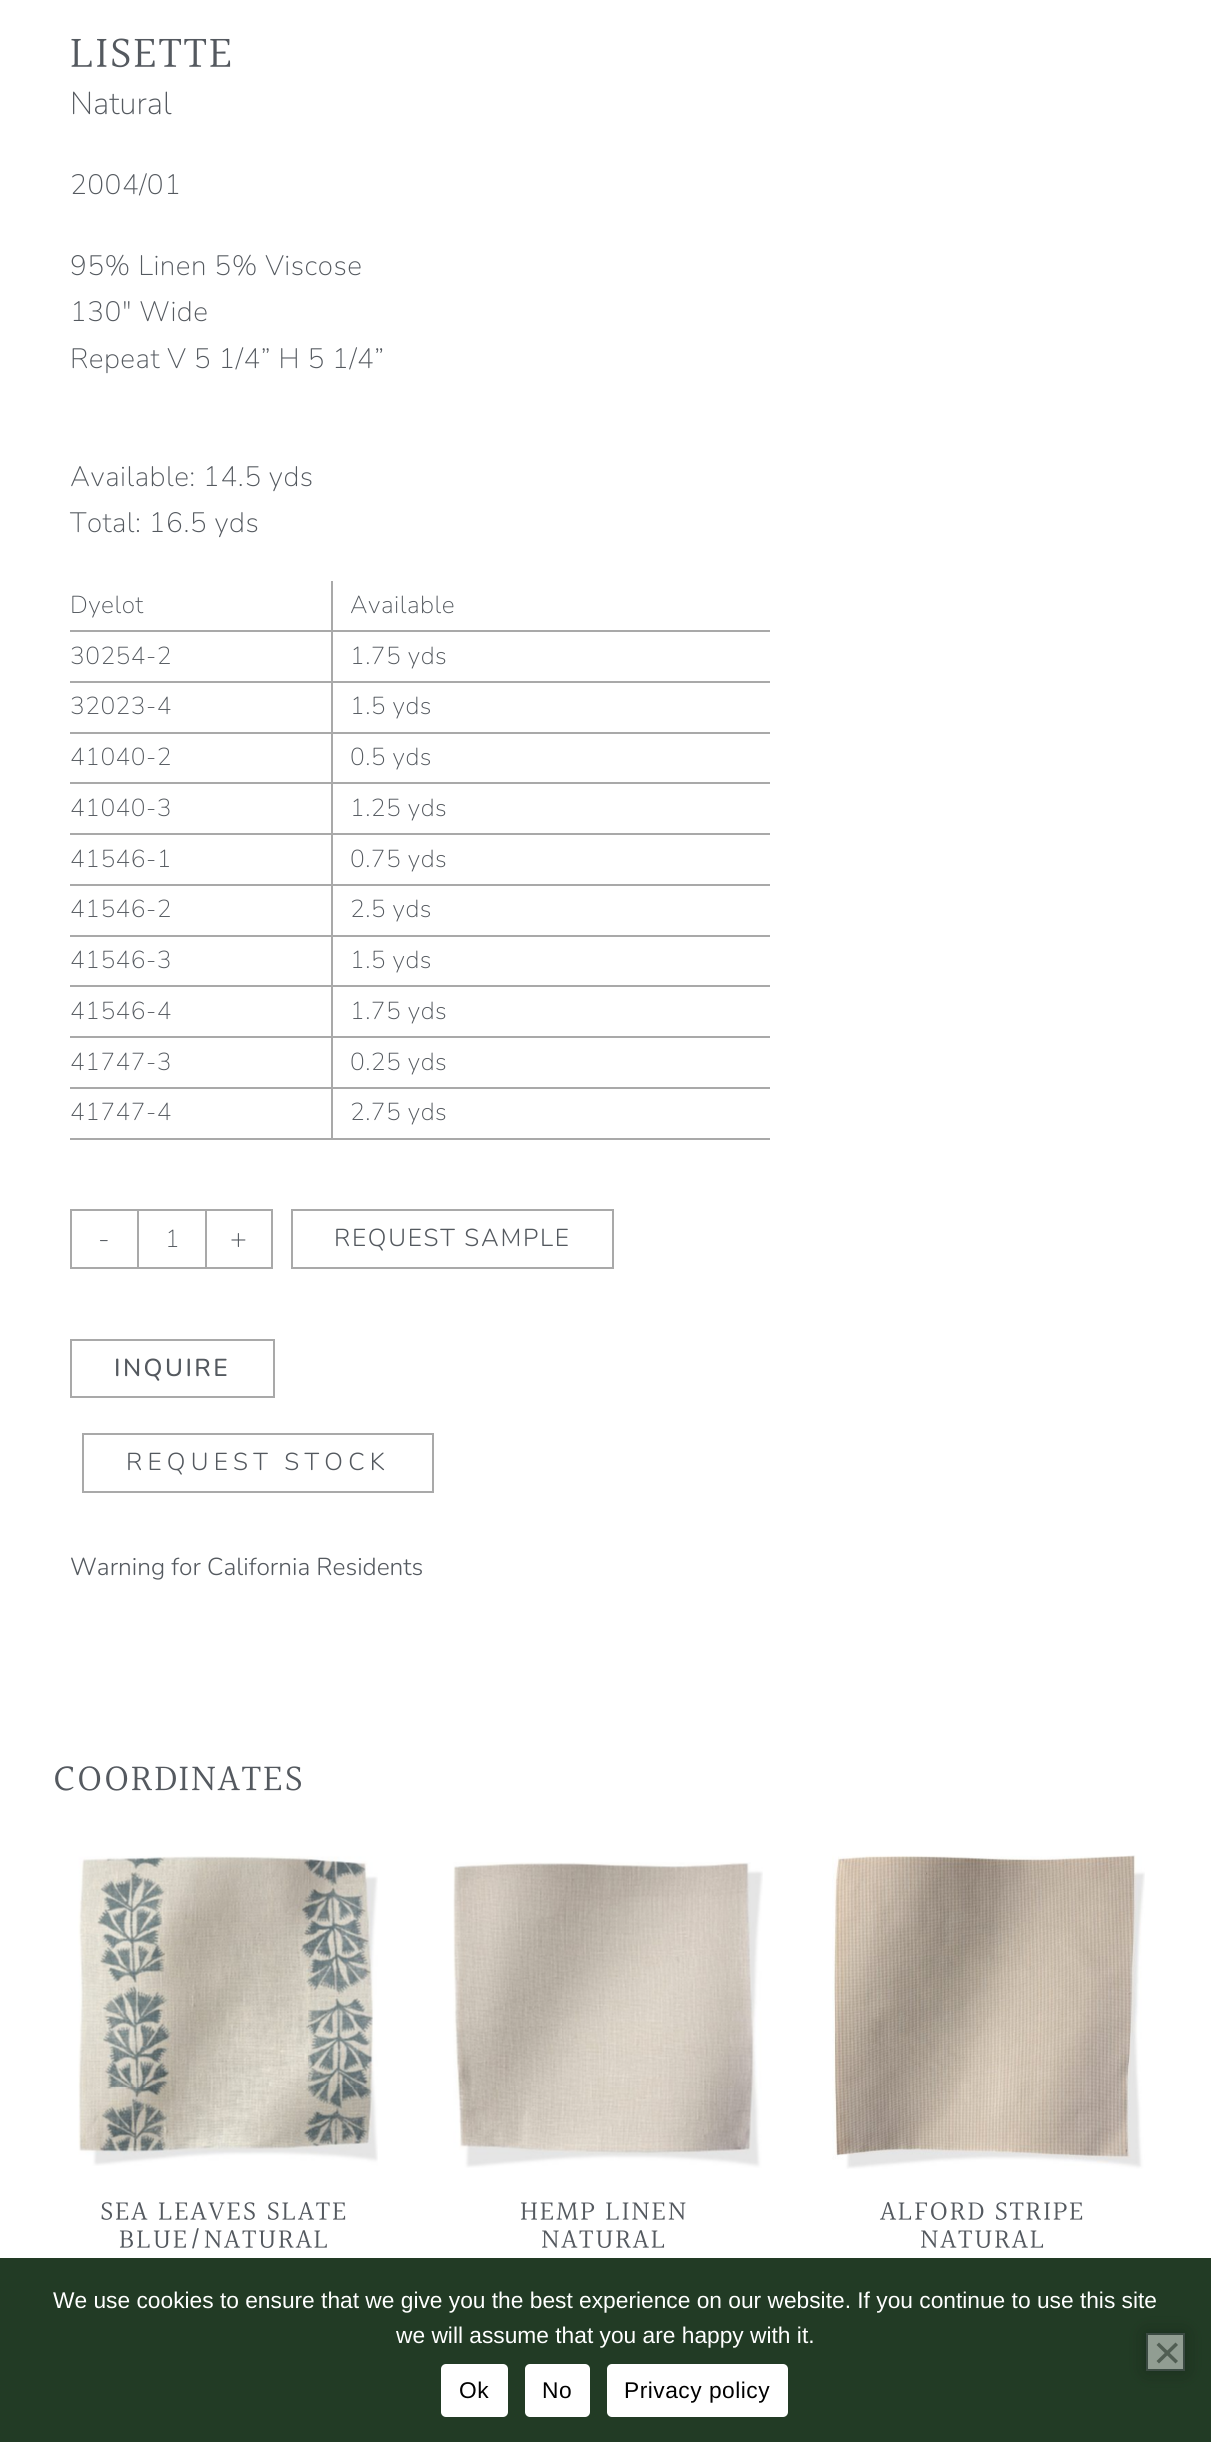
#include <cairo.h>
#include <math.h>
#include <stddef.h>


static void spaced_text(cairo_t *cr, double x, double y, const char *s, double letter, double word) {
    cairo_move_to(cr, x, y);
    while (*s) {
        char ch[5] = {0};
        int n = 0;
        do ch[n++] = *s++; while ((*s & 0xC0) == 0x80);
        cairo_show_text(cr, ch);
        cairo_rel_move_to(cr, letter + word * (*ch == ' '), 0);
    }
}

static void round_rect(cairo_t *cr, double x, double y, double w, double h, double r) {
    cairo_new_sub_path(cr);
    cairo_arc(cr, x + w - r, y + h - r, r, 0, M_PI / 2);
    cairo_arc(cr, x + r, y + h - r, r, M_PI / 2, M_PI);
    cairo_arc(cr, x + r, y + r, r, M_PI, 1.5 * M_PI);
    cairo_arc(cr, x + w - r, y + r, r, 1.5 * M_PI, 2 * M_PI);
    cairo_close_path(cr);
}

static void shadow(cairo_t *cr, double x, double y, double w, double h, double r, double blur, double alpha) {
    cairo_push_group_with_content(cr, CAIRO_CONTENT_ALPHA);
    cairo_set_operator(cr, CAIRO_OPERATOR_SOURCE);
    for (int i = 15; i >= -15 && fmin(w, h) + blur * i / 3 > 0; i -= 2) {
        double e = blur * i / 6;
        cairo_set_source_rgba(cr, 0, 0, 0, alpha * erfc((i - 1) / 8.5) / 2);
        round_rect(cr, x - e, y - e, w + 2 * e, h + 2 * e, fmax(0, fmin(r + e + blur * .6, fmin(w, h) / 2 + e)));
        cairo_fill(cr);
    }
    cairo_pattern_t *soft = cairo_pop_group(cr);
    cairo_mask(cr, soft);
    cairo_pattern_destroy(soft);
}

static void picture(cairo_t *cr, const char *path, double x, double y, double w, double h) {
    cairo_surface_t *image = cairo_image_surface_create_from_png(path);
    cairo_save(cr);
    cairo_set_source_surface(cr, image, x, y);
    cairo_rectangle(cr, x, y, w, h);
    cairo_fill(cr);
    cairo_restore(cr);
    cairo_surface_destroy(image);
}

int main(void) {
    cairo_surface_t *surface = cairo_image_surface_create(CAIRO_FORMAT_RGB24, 1211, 2442);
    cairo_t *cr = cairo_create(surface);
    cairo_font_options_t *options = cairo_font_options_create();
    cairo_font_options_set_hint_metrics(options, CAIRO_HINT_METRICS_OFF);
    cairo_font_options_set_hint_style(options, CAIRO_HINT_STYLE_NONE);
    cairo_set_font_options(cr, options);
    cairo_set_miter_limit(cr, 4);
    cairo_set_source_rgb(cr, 1, 1, 1);
    cairo_paint(cr);
    cairo_select_font_face(cr, "Halant", CAIRO_FONT_SLANT_NORMAL, CAIRO_FONT_WEIGHT_NORMAL);
    cairo_set_font_size(cr, 45.5);
    cairo_set_source_rgb(cr, 0.329, 0.349, 0.373);
    spaced_text(cr, 70, 69, "LISETTE", 1.75, 0);
    cairo_select_font_face(cr, "Nunito ExtraLight", CAIRO_FONT_SLANT_NORMAL, CAIRO_FONT_WEIGHT_NORMAL);
    cairo_set_font_size(cr, 31.5);
    cairo_move_to(cr, 70, 114);
    cairo_show_text(cr, "Natural");
    cairo_set_font_size(cr, 28);
    spaced_text(cr, 70, 194, "2004/01", 0.5, 0);
    spaced_text(cr, 70, 275, "95% Linen 5% Viscose", 0.5, 0);
    spaced_text(cr, 70, 321, "130″ Wide", 0.5, 0);
    spaced_text(cr, 70, 368, "Repeat V 5 1/4” H 5 1/4”", 0.5, 0);
    spaced_text(cr, 70, 486, "Available: 14.5 yds", 0.5, 0);
    spaced_text(cr, 70, 532, "Total: 16.5 yds", 0.5, 0);
    cairo_set_source_rgb(cr, 0.663, 0.663, 0.663);
    cairo_rectangle(cr, 331, 581, 2, 152);
    cairo_fill(cr);
    cairo_rectangle(cr, 70, 630, 700, 2);
    cairo_fill(cr);
    cairo_set_font_size(cr, 24.5);
    cairo_set_source_rgb(cr, 0.329, 0.349, 0.373);
    spaced_text(cr, 70, 613, "Dyelot", 0.5, 0);
    spaced_text(cr, 350, 613, "Available", 0.5, 0);
    cairo_set_source_rgb(cr, 0.663, 0.663, 0.663);
    cairo_rectangle(cr, 70, 681, 700, 2);
    cairo_fill(cr);
    cairo_set_source_rgb(cr, 0.329, 0.349, 0.373);
    spaced_text(cr, 70, 664, "30254-2", 0.5, 0);
    spaced_text(cr, 350, 664, "1.75 yds", 0.5, 0);
    cairo_set_source_rgb(cr, 0.663, 0.663, 0.663);
    cairo_rectangle(cr, 70, 732, 700, 2);
    cairo_fill(cr);
    cairo_set_source_rgb(cr, 0.329, 0.349, 0.373);
    spaced_text(cr, 70, 714, "32023-4", 0.5, 0);
    spaced_text(cr, 350, 714, "1.5 yds", 0.5, 0);
    cairo_set_source_rgb(cr, 0.663, 0.663, 0.663);
    cairo_rectangle(cr, 331, 733, 2, 203);
    cairo_fill(cr);
    cairo_rectangle(cr, 70, 782, 700, 2);
    cairo_fill(cr);
    cairo_set_source_rgb(cr, 0.329, 0.349, 0.373);
    spaced_text(cr, 70, 765, "41040-2", 0.5, 0);
    spaced_text(cr, 350, 765, "0.5 yds", 0.5, 0);
    cairo_set_source_rgb(cr, 0.663, 0.663, 0.663);
    cairo_rectangle(cr, 70, 833, 700, 2);
    cairo_fill(cr);
    cairo_set_source_rgb(cr, 0.329, 0.349, 0.373);
    spaced_text(cr, 70, 816, "41040-3", 0.5, 0);
    spaced_text(cr, 350, 816, "1.25 yds", 0.5, 0);
    cairo_set_source_rgb(cr, 0.663, 0.663, 0.663);
    cairo_rectangle(cr, 70, 884, 700, 2);
    cairo_fill(cr);
    cairo_set_source_rgb(cr, 0.329, 0.349, 0.373);
    spaced_text(cr, 70, 867, "41546-1", 0.5, 0);
    spaced_text(cr, 350, 867, "0.75 yds", 0.5, 0);
    cairo_set_source_rgb(cr, 0.663, 0.663, 0.663);
    cairo_rectangle(cr, 70, 935, 700, 2);
    cairo_fill(cr);
    cairo_set_source_rgb(cr, 0.329, 0.349, 0.373);
    spaced_text(cr, 70, 917, "41546-2", 0.5, 0);
    spaced_text(cr, 350, 917, "2.5 yds", 0.5, 0);
    cairo_set_source_rgb(cr, 0.663, 0.663, 0.663);
    cairo_rectangle(cr, 331, 936, 2, 203);
    cairo_fill(cr);
    cairo_rectangle(cr, 70, 985, 700, 2);
    cairo_fill(cr);
    cairo_set_source_rgb(cr, 0.329, 0.349, 0.373);
    spaced_text(cr, 70, 968, "41546-3", 0.5, 0);
    spaced_text(cr, 350, 968, "1.5 yds", 0.5, 0);
    cairo_set_source_rgb(cr, 0.663, 0.663, 0.663);
    cairo_rectangle(cr, 70, 1036, 700, 2);
    cairo_fill(cr);
    cairo_set_source_rgb(cr, 0.329, 0.349, 0.373);
    spaced_text(cr, 70, 1019, "41546-4", 0.5, 0);
    spaced_text(cr, 350, 1019, "1.75 yds", 0.5, 0);
    cairo_set_source_rgb(cr, 0.663, 0.663, 0.663);
    cairo_rectangle(cr, 70, 1087, 700, 2);
    cairo_fill(cr);
    cairo_set_source_rgb(cr, 0.329, 0.349, 0.373);
    spaced_text(cr, 70, 1070, "41747-3", 0.5, 0);
    spaced_text(cr, 350, 1070, "0.25 yds", 0.5, 0);
    cairo_set_source_rgb(cr, 0.663, 0.663, 0.663);
    cairo_rectangle(cr, 70, 1138, 700, 2);
    cairo_fill(cr);
    cairo_set_source_rgb(cr, 0.329, 0.349, 0.373);
    spaced_text(cr, 70, 1120, "41747-4", 0.5, 0);
    spaced_text(cr, 350, 1120, "2.75 yds", 0.5, 0);
    cairo_set_source_rgb(cr, 0.663, 0.663, 0.663);
    cairo_rectangle(cr, 70, 1209, 67, 2);
    cairo_fill(cr);
    cairo_rectangle(cr, 70, 1267, 67, 2);
    cairo_fill(cr);
    cairo_rectangle(cr, 70, 1209, 2, 60);
    cairo_fill(cr);
    cairo_set_font_size(cr, 28);
    cairo_set_source_rgb(cr, 0.329, 0.349, 0.373);
    spaced_text(cr, 98, 1248, "-", 0.5, 0);
    cairo_rectangle(cr, 138, 1210, 68, 58);
    cairo_set_source_rgb(cr, 0.663, 0.663, 0.663);
    cairo_stroke(cr);
    cairo_set_font_size(cr, 24.5);
    cairo_set_source_rgb(cr, 0.329, 0.349, 0.373);
    cairo_move_to(cr, 165, 1247);
    cairo_show_text(cr, "1");
    cairo_set_source_rgb(cr, 0.663, 0.663, 0.663);
    cairo_rectangle(cr, 207, 1209, 66, 2);
    cairo_fill(cr);
    cairo_rectangle(cr, 271, 1209, 2, 60);
    cairo_fill(cr);
    cairo_rectangle(cr, 207, 1267, 66, 2);
    cairo_fill(cr);
    cairo_set_font_size(cr, 28);
    cairo_set_source_rgb(cr, 0.329, 0.349, 0.373);
    spaced_text(cr, 230, 1248, "+", 0.5, 0);
    cairo_rectangle(cr, 292, 1210, 321, 58);
    cairo_set_source_rgb(cr, 0.663, 0.663, 0.663);
    cairo_stroke(cr);
    cairo_select_font_face(cr, "Nunito Light", CAIRO_FONT_SLANT_NORMAL, CAIRO_FONT_WEIGHT_NORMAL);
    cairo_set_font_size(cr, 24.5);
    cairo_set_source_rgb(cr, 0.329, 0.349, 0.373);
    spaced_text(cr, 334, 1246, "REQUEST SAMPLE", 1.75, 0);
    cairo_rectangle(cr, 71, 1340, 203, 57);
    cairo_set_source_rgb(cr, 0.663, 0.663, 0.663);
    cairo_stroke(cr);
    cairo_select_font_face(cr, "Nunito Medium", CAIRO_FONT_SLANT_NORMAL, CAIRO_FONT_WEIGHT_NORMAL);
    cairo_set_source_rgb(cr, 0.329, 0.349, 0.373);
    spaced_text(cr, 114, 1376, "INQUIRE", 2.5, 0);
    cairo_rectangle(cr, 83, 1434, 350, 58);
    cairo_set_source_rgb(cr, 0.663, 0.663, 0.663);
    cairo_stroke(cr);
    cairo_select_font_face(cr, "Nunito Light", CAIRO_FONT_SLANT_NORMAL, CAIRO_FONT_WEIGHT_NORMAL);
    cairo_set_source_rgb(cr, 0.329, 0.349, 0.373);
    spaced_text(cr, 126, 1470, "REQUEST STOCK", 5.25, 0);
    cairo_move_to(cr, 70, 1575);
    cairo_show_text(cr, "Warning for California Residents");
    cairo_select_font_face(cr, "Halant", CAIRO_FONT_SLANT_NORMAL, CAIRO_FONT_WEIGHT_NORMAL);
    cairo_set_font_size(cr, 38.25);
    spaced_text(cr, 53, 1792, "COORDINATES", 1.75, 0);
    picture(cr, "img1.png", 78, 1856, 300, 310);
    cairo_set_font_size(cr, 28);
    spaced_text(cr, 100, 2221, "SEA LEAVES SLATE", 1.75, 0);
    spaced_text(cr, 119, 2249, "BLUE/NATURAL", 1.75, 0);
    picture(cr, "img2.png", 453, 1862, 310, 306);
    spaced_text(cr, 520, 2221, "HEMP LINEN", 1.75, 0);
    spaced_text(cr, 541, 2249, "NATURAL", 1.75, 0);
    picture(cr, "img3.png", 832, 1855, 313, 314);
    spaced_text(cr, 880, 2221, "ALFORD STRIPE", 1.75, 0);
    spaced_text(cr, 920, 2249, "NATURAL", 1.75, 0);
    cairo_set_source_rgb(cr, 0.133, 0.231, 0.145);
    cairo_rectangle(cr, 0, 2258, 1211, 184);
    cairo_fill(cr);
    cairo_select_font_face(cr, "Liberation Sans", CAIRO_FONT_SLANT_NORMAL, CAIRO_FONT_WEIGHT_NORMAL);
    cairo_set_font_size(cr, 22.75);
    cairo_set_source_rgb(cr, 1, 1, 1);
    cairo_move_to(cr, 53, 2308);
    cairo_show_text(cr, "We use cookies to ensure that we give you the best experience on our website. If you continue to use this site");
    cairo_move_to(cr, 396, 2343);
    cairo_show_text(cr, "we will assume that you are happy with it.");
    cairo_set_source_rgb(cr, 0.067, 0.118, 0.075);
    shadow(cr, 1146, 2333, 39, 38, 0, 9, 0.5);
    cairo_set_source_rgb(cr, 0.569, 0.616, 0.573);
    cairo_rectangle(cr, 1147, 2334, 37, 36);
    cairo_fill_preserve(cr);
    cairo_set_source_rgb(cr, 0.231, 0.29, 0.259);
    cairo_stroke(cr);
    cairo_set_source_rgb(cr, 0.318, 0.369, 0.325);
    cairo_new_path(cr);
    cairo_move_to(cr, 1175.5, 2342.5);
    cairo_line_to(cr, 1178, 2345);
    cairo_line_to(cr, 1159, 2363.5);
    cairo_line_to(cr, 1156.5, 2361);
    cairo_close_path(cr);
    cairo_fill(cr);
    cairo_new_path(cr);
    cairo_move_to(cr, 1156.5, 2345);
    cairo_line_to(cr, 1159, 2342.5);
    cairo_line_to(cr, 1178, 2361);
    cairo_line_to(cr, 1175.5, 2363.5);
    cairo_close_path(cr);
    cairo_fill(cr);
    cairo_set_source_rgb(cr, 1, 1, 1);
    round_rect(cr, 441, 2364, 67, 53, 5);
    cairo_fill(cr);
    cairo_set_source_rgb(cr, 0, 0, 0);
    spaced_text(cr, 459, 2398, "Ok", 0.5, 0);
    cairo_set_source_rgb(cr, 1, 1, 1);
    round_rect(cr, 525, 2364, 65, 53, 5);
    cairo_fill(cr);
    cairo_set_source_rgb(cr, 0, 0, 0);
    spaced_text(cr, 542, 2398, "No", 0.5, 0);
    cairo_set_source_rgb(cr, 1, 1, 1);
    round_rect(cr, 607, 2364, 181, 53, 5);
    cairo_fill(cr);
    cairo_set_source_rgb(cr, 0, 0, 0);
    spaced_text(cr, 624, 2398, "Privacy policy", 0.5, 0);
    cairo_surface_write_to_png(surface, "page.png");
    cairo_font_options_destroy(options);
    cairo_destroy(cr);
    cairo_surface_destroy(surface);
    return 0;
}
